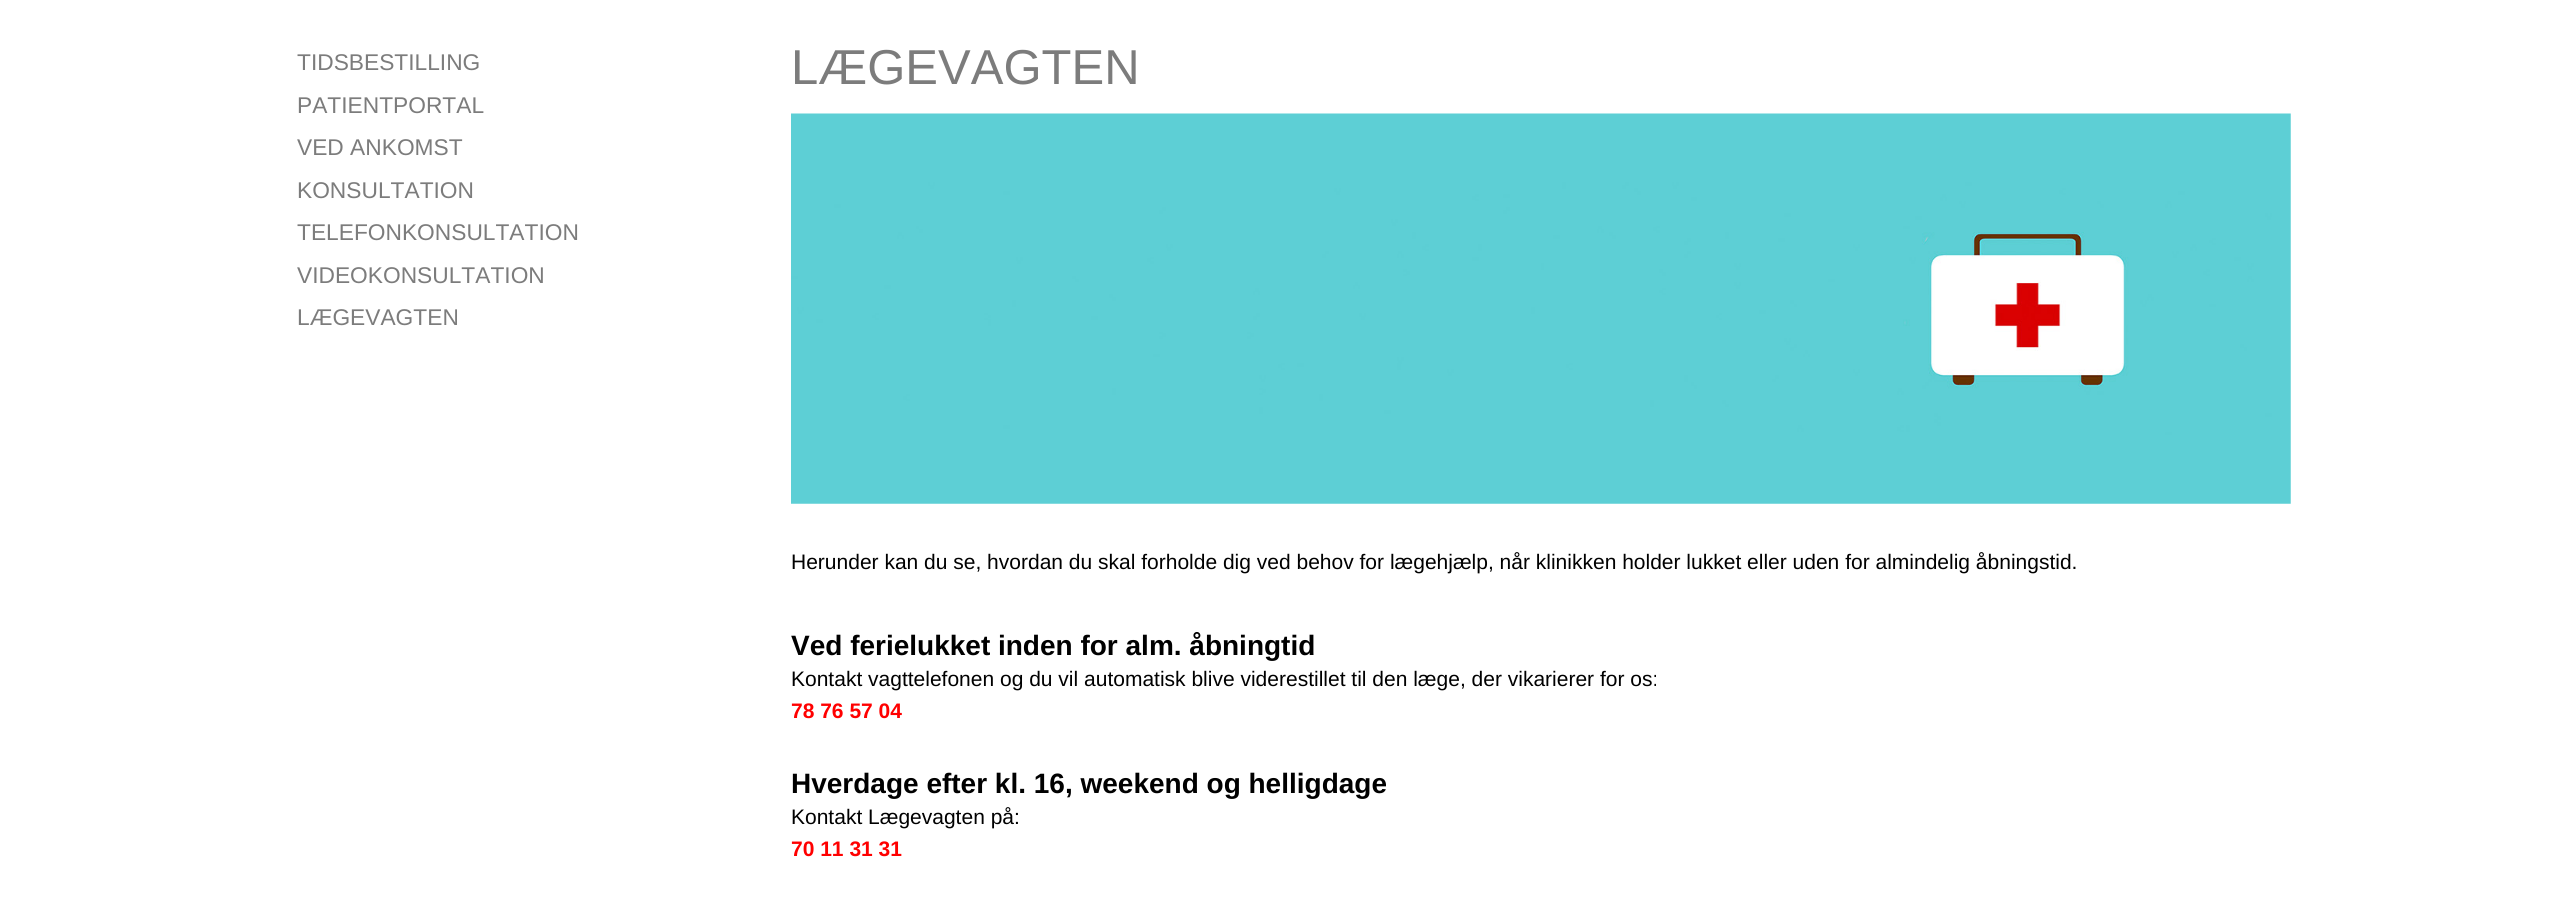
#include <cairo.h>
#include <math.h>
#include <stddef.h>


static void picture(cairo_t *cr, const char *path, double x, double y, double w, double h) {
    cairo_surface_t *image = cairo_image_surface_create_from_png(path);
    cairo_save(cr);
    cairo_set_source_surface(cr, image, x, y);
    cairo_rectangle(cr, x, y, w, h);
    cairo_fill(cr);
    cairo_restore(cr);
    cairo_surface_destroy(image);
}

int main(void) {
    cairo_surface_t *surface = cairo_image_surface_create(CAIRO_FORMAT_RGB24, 2570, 907);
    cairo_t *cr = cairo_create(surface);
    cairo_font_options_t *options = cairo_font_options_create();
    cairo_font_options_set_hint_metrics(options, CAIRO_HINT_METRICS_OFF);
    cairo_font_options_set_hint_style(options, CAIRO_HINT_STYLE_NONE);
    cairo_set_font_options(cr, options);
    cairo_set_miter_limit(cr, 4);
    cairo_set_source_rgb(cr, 1, 1, 1);
    cairo_paint(cr);
    cairo_select_font_face(cr, "Liberation Sans", CAIRO_FONT_SLANT_NORMAL, CAIRO_FONT_WEIGHT_NORMAL);
    cairo_set_font_size(cr, 22.75);
    cairo_set_source_rgb(cr, 0.486, 0.486, 0.486);
    cairo_move_to(cr, 297, 70);
    cairo_show_text(cr, "TIDSBESTILLING");
    cairo_move_to(cr, 297, 113);
    cairo_show_text(cr, "PATIENTPORTAL");
    cairo_move_to(cr, 297, 155);
    cairo_show_text(cr, "VED ANKOMST");
    cairo_move_to(cr, 297, 198);
    cairo_show_text(cr, "KONSULTATION");
    cairo_move_to(cr, 297, 240);
    cairo_show_text(cr, "TELEFONKONSULTATION");
    cairo_move_to(cr, 297, 283);
    cairo_show_text(cr, "VIDEOKONSULTATION");
    cairo_move_to(cr, 297, 325);
    cairo_show_text(cr, "LÆGEVAGTEN");
    cairo_set_font_size(cr, 49);
    cairo_move_to(cr, 791, 84);
    cairo_show_text(cr, "LÆGEVAGTEN");
    picture(cr, "img1.png", 791, 113, 1500, 391);
    cairo_set_font_size(cr, 21);
    cairo_set_source_rgb(cr, 0, 0, 0);
    cairo_move_to(cr, 791, 569);
    cairo_show_text(cr, "Herunder kan du se, hvordan du skal forholde dig ved behov for lægehjælp, når klinikken holder lukket eller uden for almindelig åbningstid.");
    cairo_select_font_face(cr, "Liberation Sans", CAIRO_FONT_SLANT_NORMAL, CAIRO_FONT_WEIGHT_BOLD);
    cairo_set_font_size(cr, 28);
    cairo_move_to(cr, 791, 655);
    cairo_show_text(cr, "Ved ferielukket inden for alm. åbningtid");
    cairo_select_font_face(cr, "Liberation Sans", CAIRO_FONT_SLANT_NORMAL, CAIRO_FONT_WEIGHT_NORMAL);
    cairo_set_font_size(cr, 21);
    cairo_move_to(cr, 791, 686);
    cairo_show_text(cr, "Kontakt vagttelefonen og du vil automatisk blive viderestillet til den læge, der vikarierer for os:");
    cairo_select_font_face(cr, "Liberation Sans", CAIRO_FONT_SLANT_NORMAL, CAIRO_FONT_WEIGHT_BOLD);
    cairo_set_source_rgb(cr, 1, 0, 0);
    cairo_move_to(cr, 791, 718);
    cairo_show_text(cr, "78 76 57 04");
    cairo_set_font_size(cr, 28);
    cairo_set_source_rgb(cr, 0, 0, 0);
    cairo_move_to(cr, 791, 793);
    cairo_show_text(cr, "Hverdage efter kl. 16, weekend og helligdage");
    cairo_select_font_face(cr, "Liberation Sans", CAIRO_FONT_SLANT_NORMAL, CAIRO_FONT_WEIGHT_NORMAL);
    cairo_set_font_size(cr, 21);
    cairo_move_to(cr, 791, 824);
    cairo_show_text(cr, "Kontakt Lægevagten på:");
    cairo_select_font_face(cr, "Liberation Sans", CAIRO_FONT_SLANT_NORMAL, CAIRO_FONT_WEIGHT_BOLD);
    cairo_set_source_rgb(cr, 1, 0, 0);
    cairo_move_to(cr, 791, 856);
    cairo_show_text(cr, "70 11 31 31");
    cairo_surface_write_to_png(surface, "page.png");
    cairo_font_options_destroy(options);
    cairo_destroy(cr);
    cairo_surface_destroy(surface);
    return 0;
}
